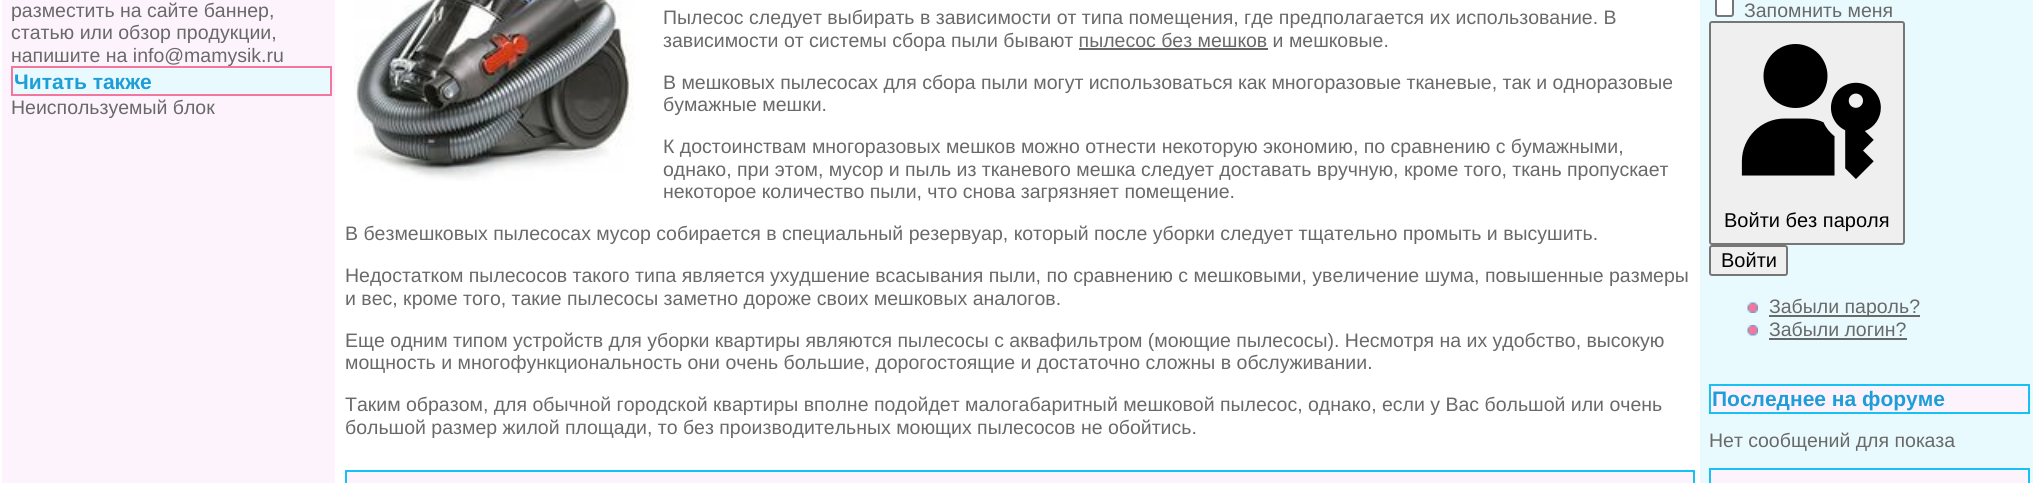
#include <cairo.h>
#include <math.h>
#include <stddef.h>


static void round_rect(cairo_t *cr, double x, double y, double w, double h, double r) {
    cairo_new_sub_path(cr);
    cairo_arc(cr, x + w - r, y + h - r, r, 0, M_PI / 2);
    cairo_arc(cr, x + r, y + h - r, r, M_PI / 2, M_PI);
    cairo_arc(cr, x + r, y + r, r, M_PI, 1.5 * M_PI);
    cairo_arc(cr, x + w - r, y + r, r, 1.5 * M_PI, 2 * M_PI);
    cairo_close_path(cr);
}

static void picture(cairo_t *cr, const char *path, double x, double y, double w, double h) {
    cairo_surface_t *image = cairo_image_surface_create_from_png(path);
    cairo_save(cr);
    cairo_set_source_surface(cr, image, x, y);
    cairo_rectangle(cr, x, y, w, h);
    cairo_fill(cr);
    cairo_restore(cr);
    cairo_surface_destroy(image);
}

int main(void) {
    cairo_surface_t *surface = cairo_image_surface_create(CAIRO_FORMAT_RGB24, 2033, 483);
    cairo_t *cr = cairo_create(surface);
    cairo_font_options_t *options = cairo_font_options_create();
    cairo_font_options_set_hint_metrics(options, CAIRO_HINT_METRICS_OFF);
    cairo_font_options_set_hint_style(options, CAIRO_HINT_STYLE_NONE);
    cairo_set_font_options(cr, options);
    cairo_set_miter_limit(cr, 4);
    cairo_set_source_rgb(cr, 1, 1, 1);
    cairo_paint(cr);
    cairo_set_source_rgb(cr, 0.992, 0.953, 0.988);
    cairo_rectangle(cr, 2, 0, 333, 483);
    cairo_fill(cr);
    cairo_select_font_face(cr, "Liberation Sans", CAIRO_FONT_SLANT_NORMAL, CAIRO_FONT_WEIGHT_NORMAL);
    cairo_set_font_size(cr, 19.5);
    cairo_set_source_rgb(cr, 0.412, 0.412, 0.412);
    cairo_move_to(cr, 11, 17);
    cairo_show_text(cr, "разместить на сайте баннер,");
    cairo_move_to(cr, 11, 39);
    cairo_show_text(cr, "статью или обзор продукции,");
    cairo_set_source_rgb(cr, 0.914, 0.98, 1);
    cairo_rectangle(cr, 12, 67, 319, 28);
    cairo_fill_preserve(cr);
    cairo_set_source_rgb(cr, 0.953, 0.467, 0.612);
    cairo_stroke(cr);
    cairo_set_source_rgb(cr, 0.412, 0.412, 0.412);
    cairo_move_to(cr, 11, 62);
    cairo_show_text(cr, "напишите на info@mamysik.ru");
    cairo_select_font_face(cr, "Liberation Sans", CAIRO_FONT_SLANT_NORMAL, CAIRO_FONT_WEIGHT_BOLD);
    cairo_set_font_size(cr, 21);
    cairo_set_source_rgb(cr, 0.114, 0.62, 0.847);
    cairo_move_to(cr, 14, 89);
    cairo_show_text(cr, "Читать также");
    cairo_select_font_face(cr, "Liberation Sans", CAIRO_FONT_SLANT_NORMAL, CAIRO_FONT_WEIGHT_NORMAL);
    cairo_set_font_size(cr, 19.5);
    cairo_set_source_rgb(cr, 0.412, 0.412, 0.412);
    cairo_move_to(cr, 11, 114);
    cairo_show_text(cr, "Неиспользуемый блок");
    picture(cr, "img1.png", 354, 0, 281, 181);
    cairo_move_to(cr, 663, 24);
    cairo_show_text(cr, "Пылесос следует выбирать в зависимости от типа помещения, где предполагается их использование. В");
    cairo_move_to(cr, 663, 47);
    cairo_show_text(cr, "зависимости от системы сбора пыли бывают пылесос без мешков и мешковые.");
    cairo_rectangle(cr, 1079, 48, 189, 2);
    cairo_fill(cr);
    cairo_move_to(cr, 663, 89);
    cairo_show_text(cr, "В мешковых пылесосах для сбора пыли могут использоваться как многоразовые тканевые, так и одноразовые");
    cairo_move_to(cr, 663, 111);
    cairo_show_text(cr, "бумажные мешки.");
    cairo_move_to(cr, 663, 153);
    cairo_show_text(cr, "К достоинствам многоразовых мешков можно отнести некоторую экономию, по сравнению с бумажными,");
    cairo_move_to(cr, 663, 176);
    cairo_show_text(cr, "однако, при этом, мусор и пыль из тканевого мешка следует доставать вручную, кроме того, ткань пропускает");
    cairo_move_to(cr, 663, 198);
    cairo_show_text(cr, "некоторое количество пыли, что снова загрязняет помещение.");
    cairo_move_to(cr, 345, 240);
    cairo_show_text(cr, "В безмешковых пылесосах мусор собирается в специальный резервуар, который после уборки следует тщательно промыть и высушить.");
    cairo_move_to(cr, 345, 282);
    cairo_show_text(cr, "Недостатком пылесосов такого типа является ухудшение всасывания пыли, по сравнению с мешковыми, увеличение шума, повышенные размеры");
    cairo_move_to(cr, 345, 305);
    cairo_show_text(cr, "и вес, кроме того, такие пылесосы заметно дороже своих мешковых аналогов.");
    cairo_move_to(cr, 345, 347);
    cairo_show_text(cr, "Еще одним типом устройств для уборки квартиры являются пылесосы с аквафильтром (моющие пылесосы). Несмотря на их удобство, высокую");
    cairo_move_to(cr, 345, 369);
    cairo_show_text(cr, "мощность и многофункциональность они очень большие, дорогостоящие и достаточно сложны в обслуживании.");
    cairo_move_to(cr, 345, 411);
    cairo_show_text(cr, "Таким образом, для обычной городской квартиры вполне подойдет малогабаритный мешковой пылесос, однако, если у Вас большой или очень");
    cairo_move_to(cr, 345, 434);
    cairo_show_text(cr, "большой размер жилой площади, то без производительных моющих пылесосов не обойтись.");
    cairo_set_source_rgb(cr, 0.992, 0.953, 0.988);
    cairo_rectangle(cr, 346, 471, 1348, 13);
    cairo_fill_preserve(cr);
    cairo_set_source_rgb(cr, 0.09, 0.757, 0.953);
    cairo_stroke(cr);
    cairo_set_source_rgb(cr, 0.914, 0.98, 1);
    cairo_rectangle(cr, 1700, 0, 333, 483);
    cairo_fill(cr);
    cairo_set_source_rgb(cr, 1, 1, 1);
    round_rect(cr, 1716, -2, 17, 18, 2);
    cairo_fill_preserve(cr);
    cairo_set_source_rgb(cr, 0.463, 0.463, 0.463);
    cairo_stroke(cr);
    cairo_set_source_rgb(cr, 0.412, 0.412, 0.412);
    cairo_move_to(cr, 1744, 17);
    cairo_show_text(cr, "Запомнить меня");
    cairo_set_source_rgb(cr, 0.937, 0.937, 0.937);
    round_rect(cr, 1710, 22, 194, 222, 2);
    cairo_fill_preserve(cr);
    cairo_set_source_rgb(cr, 0.463, 0.463, 0.463);
    cairo_stroke(cr);
    picture(cr, "img2.png", 1741, 44, 140, 135);
    cairo_set_font_size(cr, 20);
    cairo_set_source_rgb(cr, 0, 0, 0);
    cairo_move_to(cr, 1724, 227);
    cairo_show_text(cr, "Войти без пароля");
    cairo_set_source_rgb(cr, 0.937, 0.937, 0.937);
    round_rect(cr, 1710, 246, 77, 29, 2);
    cairo_fill_preserve(cr);
    cairo_set_source_rgb(cr, 0.463, 0.463, 0.463);
    cairo_stroke(cr);
    cairo_set_source_rgb(cr, 0, 0, 0);
    cairo_move_to(cr, 1721, 267);
    cairo_show_text(cr, "Войти");
    picture(cr, "img3.png", 1747, 302, 11, 11);
    cairo_set_source_rgb(cr, 0.412, 0.412, 0.412);
    cairo_rectangle(cr, 1769, 315, 151, 2);
    cairo_fill(cr);
    cairo_set_font_size(cr, 19.5);
    cairo_move_to(cr, 1769, 313);
    cairo_show_text(cr, "Забыли пароль?");
    picture(cr, "img4.png", 1747, 325, 11, 11);
    cairo_move_to(cr, 1769, 336);
    cairo_show_text(cr, "Забыли логин?");
    cairo_rectangle(cr, 1769, 338, 138, 2);
    cairo_fill(cr);
    cairo_set_source_rgb(cr, 0.992, 0.953, 0.988);
    cairo_rectangle(cr, 1710, 385, 319, 28);
    cairo_fill_preserve(cr);
    cairo_set_source_rgb(cr, 0.09, 0.757, 0.953);
    cairo_stroke(cr);
    cairo_select_font_face(cr, "Liberation Sans", CAIRO_FONT_SLANT_NORMAL, CAIRO_FONT_WEIGHT_BOLD);
    cairo_set_font_size(cr, 21);
    cairo_set_source_rgb(cr, 0.114, 0.62, 0.847);
    cairo_move_to(cr, 1712, 406);
    cairo_show_text(cr, "Последнее на форуме");
    cairo_select_font_face(cr, "Liberation Sans", CAIRO_FONT_SLANT_NORMAL, CAIRO_FONT_WEIGHT_NORMAL);
    cairo_set_font_size(cr, 19.5);
    cairo_set_source_rgb(cr, 0.412, 0.412, 0.412);
    cairo_move_to(cr, 1709, 447);
    cairo_show_text(cr, "Нет сообщений для показа");
    cairo_set_source_rgb(cr, 0.992, 0.953, 0.988);
    cairo_rectangle(cr, 1710, 469, 319, 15);
    cairo_fill_preserve(cr);
    cairo_set_source_rgb(cr, 0.09, 0.757, 0.953);
    cairo_stroke(cr);
    cairo_surface_write_to_png(surface, "page.png");
    cairo_font_options_destroy(options);
    cairo_destroy(cr);
    cairo_surface_destroy(surface);
    return 0;
}
